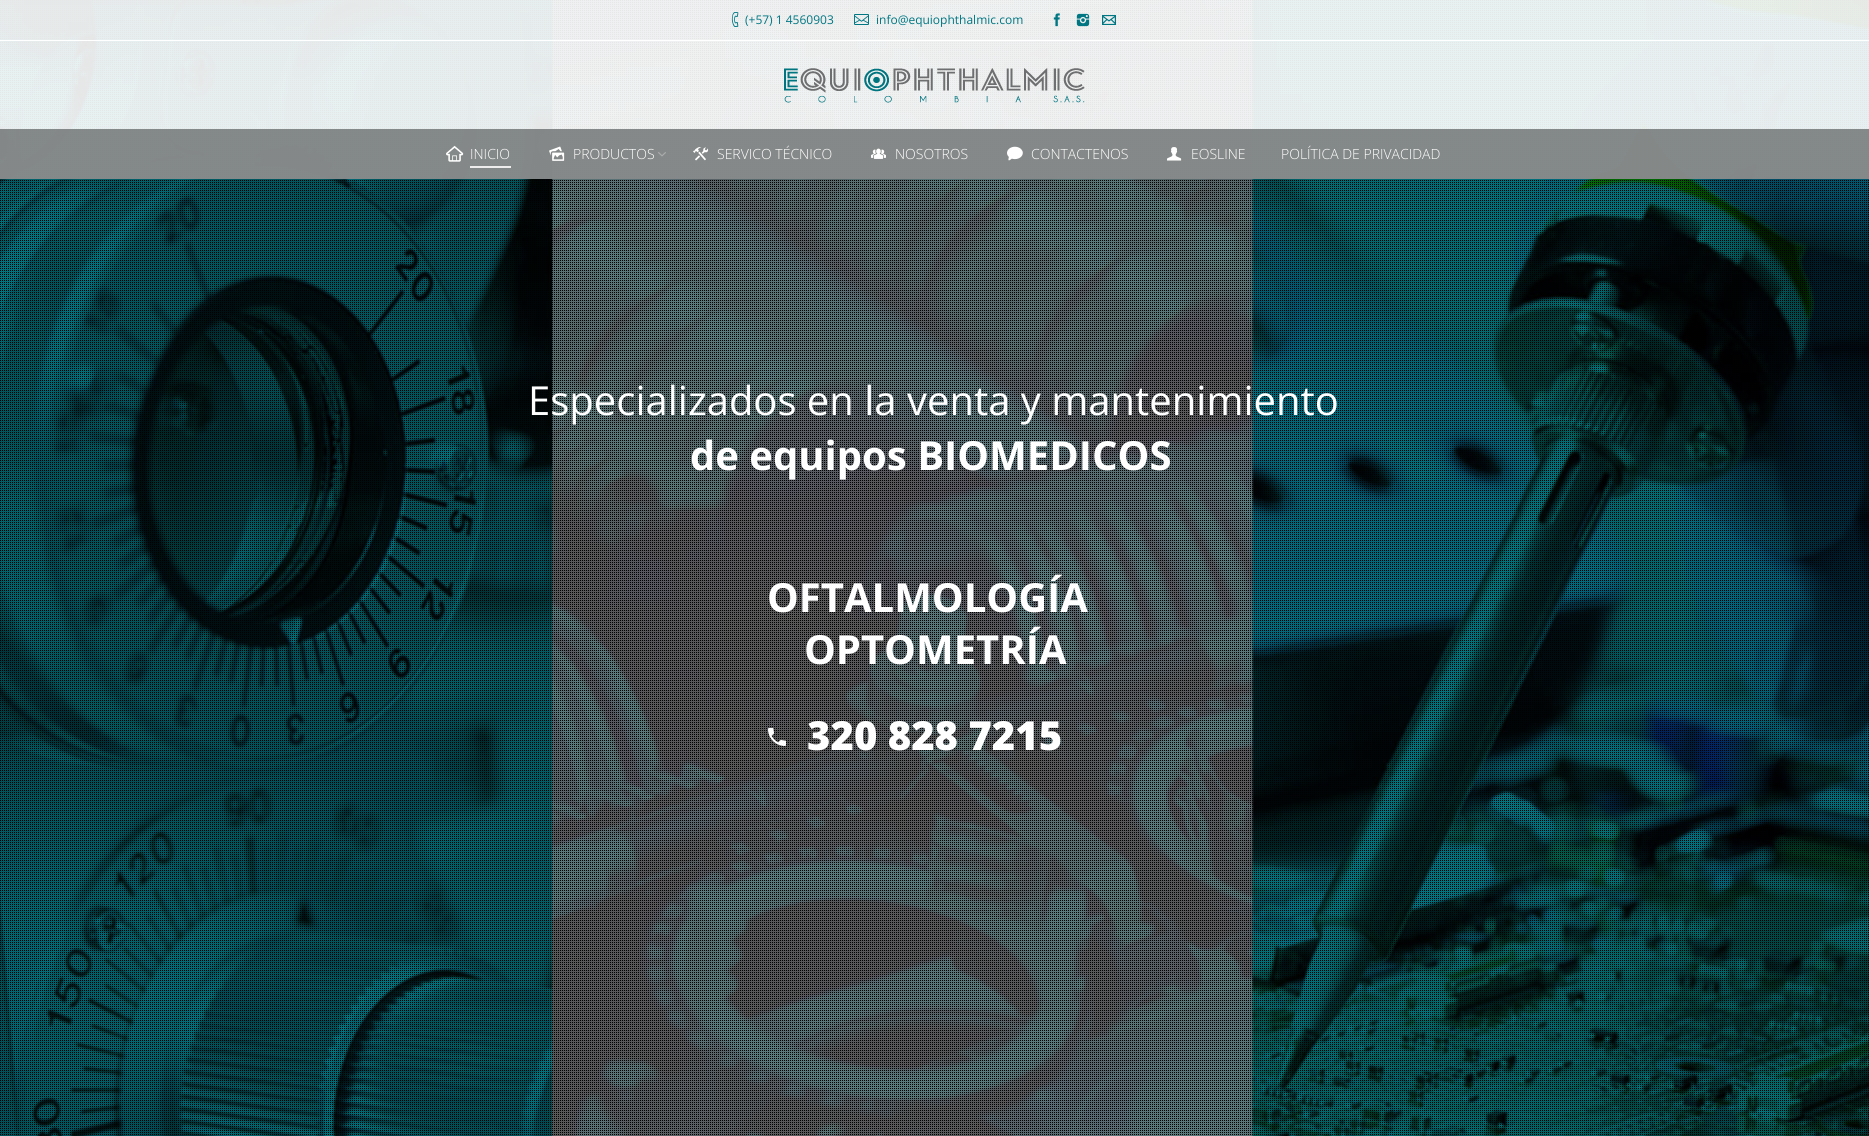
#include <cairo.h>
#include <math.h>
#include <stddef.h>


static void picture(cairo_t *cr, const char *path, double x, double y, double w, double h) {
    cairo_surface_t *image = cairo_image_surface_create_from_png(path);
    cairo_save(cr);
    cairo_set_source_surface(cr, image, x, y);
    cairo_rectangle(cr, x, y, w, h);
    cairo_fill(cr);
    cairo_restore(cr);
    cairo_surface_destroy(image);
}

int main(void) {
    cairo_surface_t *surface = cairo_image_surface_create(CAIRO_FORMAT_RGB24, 1869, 1136);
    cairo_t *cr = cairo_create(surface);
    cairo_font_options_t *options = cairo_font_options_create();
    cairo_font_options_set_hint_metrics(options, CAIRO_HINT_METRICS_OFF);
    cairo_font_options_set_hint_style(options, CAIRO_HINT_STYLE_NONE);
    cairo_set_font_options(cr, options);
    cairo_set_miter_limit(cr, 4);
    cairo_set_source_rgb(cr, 1, 1, 1);
    cairo_paint(cr);
    picture(cr, "img14.png", 0, 0, 1869, 1136);
    picture(cr, "img15.png", 0, 0, 1869, 1135);
    cairo_set_source_rgba(cr, 0, 0, 0, 0.15);
    cairo_rectangle(cr, 0, 0, 259, 5);
    cairo_fill(cr);
    cairo_set_source_rgba(cr, 1, 1, 1, 0.9);
    cairo_rectangle(cr, 0, 0, 1869, 179);
    cairo_fill(cr);
    cairo_set_source_rgb(cr, 1, 1, 1);
    cairo_rectangle(cr, 0, 40, 1869, 1);
    cairo_fill(cr);
    picture(cr, "img1.png", 731, 12, 8, 15);
    cairo_select_font_face(cr, "Open Sans", CAIRO_FONT_SLANT_NORMAL, CAIRO_FONT_WEIGHT_NORMAL);
    cairo_set_font_size(cr, 12);
    cairo_set_source_rgb(cr, 0, 0.463, 0.51);
    cairo_move_to(cr, 745, 24);
    cairo_show_text(cr, "(+57) 1 4560903");
    picture(cr, "img2.png", 854, 14, 15, 11);
    cairo_move_to(cr, 876, 24);
    cairo_show_text(cr, "info@equiophthalmic.com");
    picture(cr, "img3.png", 1053, 13, 7, 14);
    picture(cr, "img4.png", 1076, 13, 14, 14);
    picture(cr, "img5.png", 1102, 15, 14, 10);
    picture(cr, "img6.png", 784, 68, 301, 35);
    cairo_set_source_rgba(cr, 0.424, 0.435, 0.439, 0.8);
    cairo_rectangle(cr, 0, 129, 1869, 50);
    cairo_fill(cr);
    picture(cr, "img7.png", 446, 145, 18, 17);
    cairo_select_font_face(cr, "Open Sans Light", CAIRO_FONT_SLANT_NORMAL, CAIRO_FONT_WEIGHT_NORMAL);
    cairo_set_font_size(cr, 14);
    cairo_set_source_rgb(cr, 1, 1, 1);
    cairo_move_to(cr, 470, 159);
    cairo_show_text(cr, "INICIO");
    cairo_set_source_rgb(cr, 0.929, 0.929, 0.929);
    cairo_rectangle(cr, 470, 166, 41, 2);
    cairo_fill(cr);
    picture(cr, "img8.png", 549, 146, 16, 15);
    cairo_set_source_rgb(cr, 1, 1, 1);
    cairo_move_to(cr, 573, 159);
    cairo_show_text(cr, "PRODUCTOS");
    picture(cr, "img9.png", 658, 152, 8, 5);
    picture(cr, "img10.png", 693, 147, 16, 14);
    cairo_move_to(cr, 717, 159);
    cairo_show_text(cr, "SERVICO TÉCNICO");
    picture(cr, "img11.png", 871, 148, 15, 11);
    cairo_move_to(cr, 895, 159);
    cairo_show_text(cr, "NOSOTROS");
    picture(cr, "img12.png", 1007, 146, 16, 15);
    cairo_move_to(cr, 1031, 159);
    cairo_show_text(cr, "CONTACTENOS");
    picture(cr, "img13.png", 1167, 147, 15, 14);
    cairo_move_to(cr, 1191, 159);
    cairo_show_text(cr, "EOSLINE");
    cairo_move_to(cr, 1281, 159);
    cairo_show_text(cr, "POLÍTICA DE PRIVACIDAD");
    cairo_select_font_face(cr, "Open Sans", CAIRO_FONT_SLANT_NORMAL, CAIRO_FONT_WEIGHT_NORMAL);
    cairo_set_font_size(cr, 40);
    cairo_move_to(cr, 528, 415);
    cairo_show_text(cr, "Especializados en la venta y mantenimiento");
    cairo_select_font_face(cr, "Open Sans", CAIRO_FONT_SLANT_NORMAL, CAIRO_FONT_WEIGHT_BOLD);
    cairo_move_to(cr, 690, 470);
    cairo_show_text(cr, "de equipos BIOMEDICOS");
    cairo_move_to(cr, 767, 612);
    cairo_show_text(cr, "OFTALMOLOGÍA");
    cairo_move_to(cr, 804, 664);
    cairo_show_text(cr, "OPTOMETRÍA");
    picture(cr, "img16.png", 768, 728, 18, 18);
    cairo_select_font_face(cr, "Open Sans ExtraBold", CAIRO_FONT_SLANT_NORMAL, CAIRO_FONT_WEIGHT_NORMAL);
    cairo_move_to(cr, 807, 750);
    cairo_show_text(cr, "320 828 7215");
    cairo_surface_write_to_png(surface, "page.png");
    cairo_font_options_destroy(options);
    cairo_destroy(cr);
    cairo_surface_destroy(surface);
    return 0;
}
